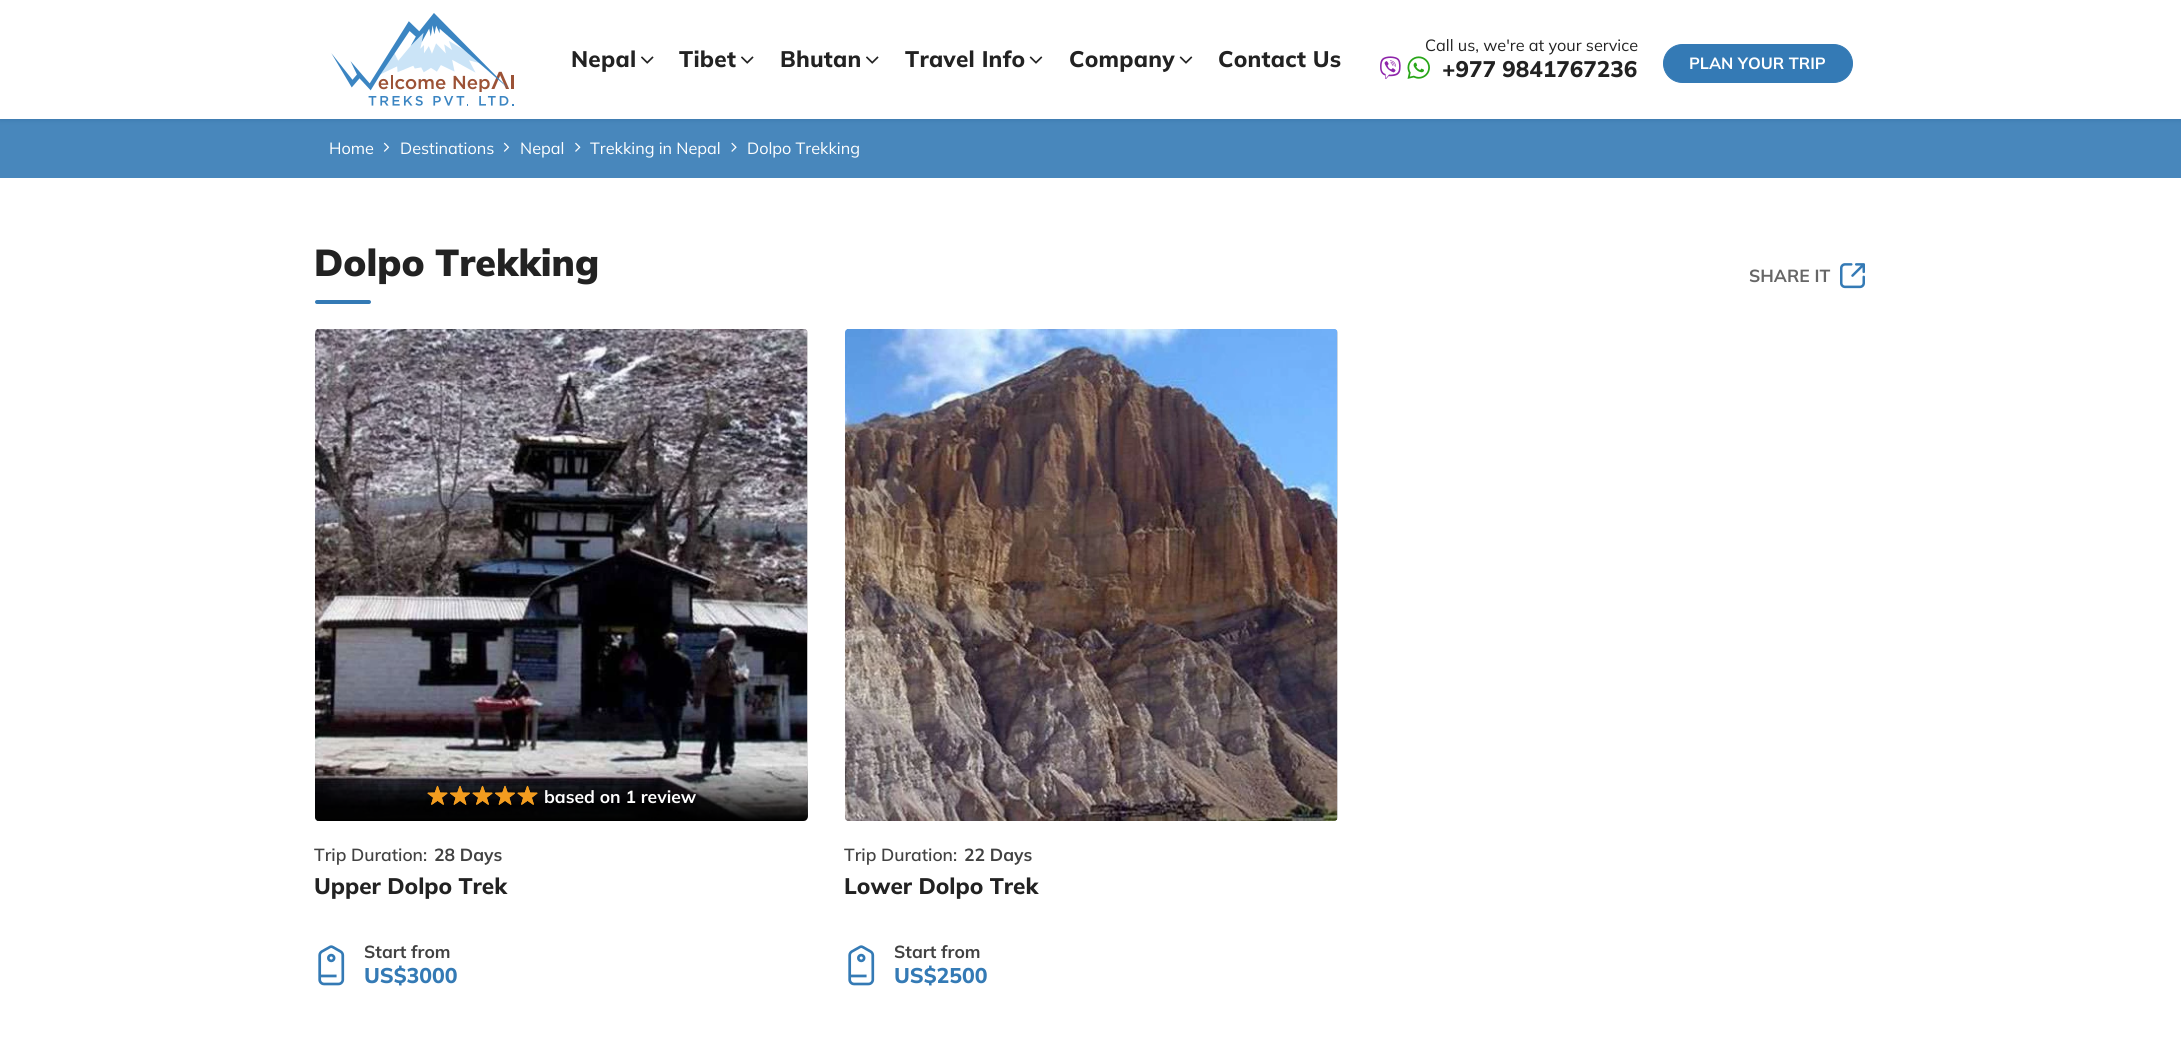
#include <cairo.h>
#include <math.h>
#include <stddef.h>


static void spaced_text(cairo_t *cr, double x, double y, const char *s, double letter, double word) {
    cairo_move_to(cr, x, y);
    while (*s) {
        char ch[5] = {0};
        int n = 0;
        do ch[n++] = *s++; while ((*s & 0xC0) == 0x80);
        cairo_show_text(cr, ch);
        cairo_rel_move_to(cr, letter + word * (*ch == ' '), 0);
    }
}

static void round_rect(cairo_t *cr, double x, double y, double w, double h, double r) {
    cairo_new_sub_path(cr);
    cairo_arc(cr, x + w - r, y + h - r, r, 0, M_PI / 2);
    cairo_arc(cr, x + r, y + h - r, r, M_PI / 2, M_PI);
    cairo_arc(cr, x + r, y + r, r, M_PI, 1.5 * M_PI);
    cairo_arc(cr, x + w - r, y + r, r, 1.5 * M_PI, 2 * M_PI);
    cairo_close_path(cr);
}

static void shadow(cairo_t *cr, double x, double y, double w, double h, double r, double blur, double alpha) {
    cairo_push_group_with_content(cr, CAIRO_CONTENT_ALPHA);
    cairo_set_operator(cr, CAIRO_OPERATOR_SOURCE);
    for (int i = 15; i >= -15 && fmin(w, h) + blur * i / 3 > 0; i -= 2) {
        double e = blur * i / 6;
        cairo_set_source_rgba(cr, 0, 0, 0, alpha * erfc((i - 1) / 8.5) / 2);
        round_rect(cr, x - e, y - e, w + 2 * e, h + 2 * e, fmax(0, fmin(r + e + blur * .6, fmin(w, h) / 2 + e)));
        cairo_fill(cr);
    }
    cairo_pattern_t *soft = cairo_pop_group(cr);
    cairo_mask(cr, soft);
    cairo_pattern_destroy(soft);
}

static void picture(cairo_t *cr, const char *path, double x, double y, double w, double h) {
    cairo_surface_t *image = cairo_image_surface_create_from_png(path);
    cairo_save(cr);
    cairo_set_source_surface(cr, image, x, y);
    cairo_rectangle(cr, x, y, w, h);
    cairo_fill(cr);
    cairo_restore(cr);
    cairo_surface_destroy(image);
}

int main(void) {
    cairo_surface_t *surface = cairo_image_surface_create(CAIRO_FORMAT_RGB24, 2181, 1040);
    cairo_t *cr = cairo_create(surface);
    cairo_font_options_t *options = cairo_font_options_create();
    cairo_font_options_set_hint_metrics(options, CAIRO_HINT_METRICS_OFF);
    cairo_font_options_set_hint_style(options, CAIRO_HINT_STYLE_NONE);
    cairo_set_font_options(cr, options);
    cairo_set_miter_limit(cr, 4);
    cairo_pattern_t *gradient;
    cairo_set_source_rgb(cr, 1, 1, 1);
    cairo_paint(cr);
    cairo_set_source_rgb(cr, 0.282, 0.529, 0.737);
    cairo_rectangle(cr, 0, 119, 2181, 59);
    cairo_fill(cr);
    cairo_set_source_rgb(cr, 0.024, 0.224, 0.412);
    shadow(cr, 0, 1, 2181, 119, 0, 2.5, 0.2);
    cairo_set_source_rgb(cr, 1, 1, 1);
    cairo_rectangle(cr, 0, 0, 2181, 119);
    cairo_fill(cr);
    picture(cr, "img1.png", 331, 13, 183, 93);
    cairo_select_font_face(cr, "Mulish ExtraBold", CAIRO_FONT_SLANT_NORMAL, CAIRO_FONT_WEIGHT_NORMAL);
    cairo_set_font_size(cr, 22.5);
    cairo_set_source_rgb(cr, 0.133, 0.133, 0.133);
    spaced_text(cr, 571, 67, "Nepal", 0.25, 0);
    picture(cr, "img2.png", 641, 56, 13, 8);
    spaced_text(cr, 679, 67, "Tibet", 0.25, 0);
    picture(cr, "img2.png", 741, 56, 13, 8);
    spaced_text(cr, 780, 67, "Bhutan", 0.25, 0);
    picture(cr, "img2.png", 866, 56, 13, 8);
    spaced_text(cr, 905, 67, "Travel Info", 0.25, 0);
    picture(cr, "img3.png", 1029, 56, 14, 8);
    spaced_text(cr, 1069, 67, "Company", 0.25, 0);
    picture(cr, "img3.png", 1179, 56, 14, 8);
    spaced_text(cr, 1218, 67, "Contact Us", 0.25, 0);
    cairo_select_font_face(cr, "Mulish", CAIRO_FONT_SLANT_NORMAL, CAIRO_FONT_WEIGHT_NORMAL);
    cairo_set_font_size(cr, 16.25);
    cairo_move_to(cr, 1425, 51);
    cairo_show_text(cr, "Call us, we're at your service");
    picture(cr, "img4.png", 1380, 56, 21, 23);
    picture(cr, "img5.png", 1407, 56, 23, 23);
    cairo_select_font_face(cr, "Mulish ExtraBold", CAIRO_FONT_SLANT_NORMAL, CAIRO_FONT_WEIGHT_NORMAL);
    cairo_set_font_size(cr, 22.5);
    cairo_move_to(cr, 1442, 77);
    cairo_show_text(cr, "+977 9841767236");
    cairo_set_source_rgb(cr, 0.204, 0.478, 0.71);
    round_rect(cr, 1663.5, 44.5, 189, 38, 19);
    cairo_fill_preserve(cr);
    cairo_set_line_width(cr, 1);
    cairo_stroke(cr);
    cairo_select_font_face(cr, "Mulish", CAIRO_FONT_SLANT_NORMAL, CAIRO_FONT_WEIGHT_BOLD);
    cairo_set_font_size(cr, 16.25);
    cairo_set_source_rgb(cr, 1, 1, 1);
    cairo_move_to(cr, 1689, 69);
    cairo_show_text(cr, "PLAN YOUR TRIP");
    cairo_select_font_face(cr, "Mulish", CAIRO_FONT_SLANT_NORMAL, CAIRO_FONT_WEIGHT_NORMAL);
    cairo_move_to(cr, 329, 154);
    cairo_show_text(cr, "Home");
    picture(cr, "img6.png", 383, 142, 7, 10);
    cairo_move_to(cr, 400, 154);
    cairo_show_text(cr, "Destinations");
    picture(cr, "img6.png", 503, 142, 7, 10);
    cairo_move_to(cr, 520, 154);
    cairo_show_text(cr, "Nepal");
    picture(cr, "img7.png", 575, 142, 6, 10);
    cairo_move_to(cr, 590, 154);
    cairo_show_text(cr, "Trekking in Nepal");
    picture(cr, "img8.png", 731, 142, 6, 10);
    cairo_move_to(cr, 747, 154);
    cairo_show_text(cr, "Dolpo Trekking");
    cairo_select_font_face(cr, "Mulish Black", CAIRO_FONT_SLANT_NORMAL, CAIRO_FONT_WEIGHT_NORMAL);
    cairo_set_font_size(cr, 37.5);
    cairo_set_source_rgb(cr, 0.133, 0.133, 0.133);
    cairo_move_to(cr, 314, 276);
    cairo_show_text(cr, "Dolpo Trekking");
    cairo_set_source_rgb(cr, 0.204, 0.478, 0.71);
    round_rect(cr, 315, 300, 56, 4, 2);
    cairo_fill(cr);
    cairo_select_font_face(cr, "Mulish", CAIRO_FONT_SLANT_NORMAL, CAIRO_FONT_WEIGHT_BOLD);
    cairo_set_font_size(cr, 17.5);
    cairo_set_source_rgb(cr, 0.4, 0.4, 0.4);
    cairo_move_to(cr, 1749, 282);
    cairo_show_text(cr, "SHARE IT");
    picture(cr, "img9.png", 1840, 263, 25, 26);
    cairo_set_source_rgb(cr, 0.863, 0.863, 0.863);
    round_rect(cr, 315, 329, 493, 492, 4);
    cairo_fill(cr);
    picture(cr, "img10.png", 315, 329, 493, 492);
    gradient = cairo_pattern_create_linear(561, 821, 561, 765);
    cairo_pattern_add_color_stop_rgba(gradient, 0, 0, 0, 0, 1);
    cairo_pattern_add_color_stop_rgba(gradient, 1, 0, 0, 0, 0);
    cairo_set_source(cr, gradient);
    cairo_pattern_destroy(gradient);
    round_rect(cr, 315, 765, 493, 56, 5);
    cairo_fill(cr);
    picture(cr, "img11.png", 427, 785, 111, 20);
    picture(cr, "img12.png", 427, 785, 111, 20);
    cairo_set_source_rgb(cr, 1, 1, 1);
    cairo_move_to(cr, 544, 803);
    cairo_show_text(cr, "based on 1 review");
    cairo_select_font_face(cr, "Mulish SemiBold", CAIRO_FONT_SLANT_NORMAL, CAIRO_FONT_WEIGHT_NORMAL);
    cairo_set_source_rgb(cr, 0.259, 0.259, 0.259);
    cairo_move_to(cr, 314, 861);
    cairo_show_text(cr, "Trip Duration:");
    cairo_select_font_face(cr, "Mulish", CAIRO_FONT_SLANT_NORMAL, CAIRO_FONT_WEIGHT_BOLD);
    cairo_move_to(cr, 434, 861);
    cairo_show_text(cr, "28 Days");
    cairo_select_font_face(cr, "Mulish ExtraBold", CAIRO_FONT_SLANT_NORMAL, CAIRO_FONT_WEIGHT_NORMAL);
    cairo_set_font_size(cr, 22.5);
    cairo_set_source_rgb(cr, 0.133, 0.133, 0.133);
    cairo_move_to(cr, 314, 894);
    cairo_show_text(cr, "Upper Dolpo Trek");
    picture(cr, "img13.png", 318, 945, 27, 41);
    cairo_select_font_face(cr, "Mulish", CAIRO_FONT_SLANT_NORMAL, CAIRO_FONT_WEIGHT_BOLD);
    cairo_set_font_size(cr, 17.5);
    cairo_set_source_rgb(cr, 0.259, 0.259, 0.259);
    cairo_move_to(cr, 364, 958);
    cairo_show_text(cr, "Start from");
    cairo_select_font_face(cr, "Mulish ExtraBold", CAIRO_FONT_SLANT_NORMAL, CAIRO_FONT_WEIGHT_NORMAL);
    cairo_set_font_size(cr, 21.25);
    cairo_set_source_rgb(cr, 0.204, 0.478, 0.71);
    cairo_move_to(cr, 364, 983);
    cairo_show_text(cr, "US$3000");
    cairo_set_source_rgb(cr, 0.863, 0.863, 0.863);
    round_rect(cr, 845, 329, 493, 492, 4);
    cairo_fill(cr);
    picture(cr, "img14.png", 845, 329, 493, 492);
    cairo_select_font_face(cr, "Mulish SemiBold", CAIRO_FONT_SLANT_NORMAL, CAIRO_FONT_WEIGHT_NORMAL);
    cairo_set_font_size(cr, 17.5);
    cairo_set_source_rgb(cr, 0.259, 0.259, 0.259);
    cairo_move_to(cr, 844, 861);
    cairo_show_text(cr, "Trip Duration:");
    cairo_select_font_face(cr, "Mulish", CAIRO_FONT_SLANT_NORMAL, CAIRO_FONT_WEIGHT_BOLD);
    cairo_move_to(cr, 964, 861);
    cairo_show_text(cr, "22 Days");
    cairo_select_font_face(cr, "Mulish ExtraBold", CAIRO_FONT_SLANT_NORMAL, CAIRO_FONT_WEIGHT_NORMAL);
    cairo_set_font_size(cr, 22.5);
    cairo_set_source_rgb(cr, 0.133, 0.133, 0.133);
    cairo_move_to(cr, 844, 894);
    cairo_show_text(cr, "Lower Dolpo Trek");
    picture(cr, "img13.png", 848, 945, 27, 41);
    cairo_select_font_face(cr, "Mulish", CAIRO_FONT_SLANT_NORMAL, CAIRO_FONT_WEIGHT_BOLD);
    cairo_set_font_size(cr, 17.5);
    cairo_set_source_rgb(cr, 0.259, 0.259, 0.259);
    cairo_move_to(cr, 894, 958);
    cairo_show_text(cr, "Start from");
    cairo_select_font_face(cr, "Mulish ExtraBold", CAIRO_FONT_SLANT_NORMAL, CAIRO_FONT_WEIGHT_NORMAL);
    cairo_set_font_size(cr, 21.25);
    cairo_set_source_rgb(cr, 0.204, 0.478, 0.71);
    cairo_move_to(cr, 894, 983);
    cairo_show_text(cr, "US$2500");
    cairo_surface_write_to_png(surface, "page.png");
    cairo_font_options_destroy(options);
    cairo_destroy(cr);
    cairo_surface_destroy(surface);
    return 0;
}
